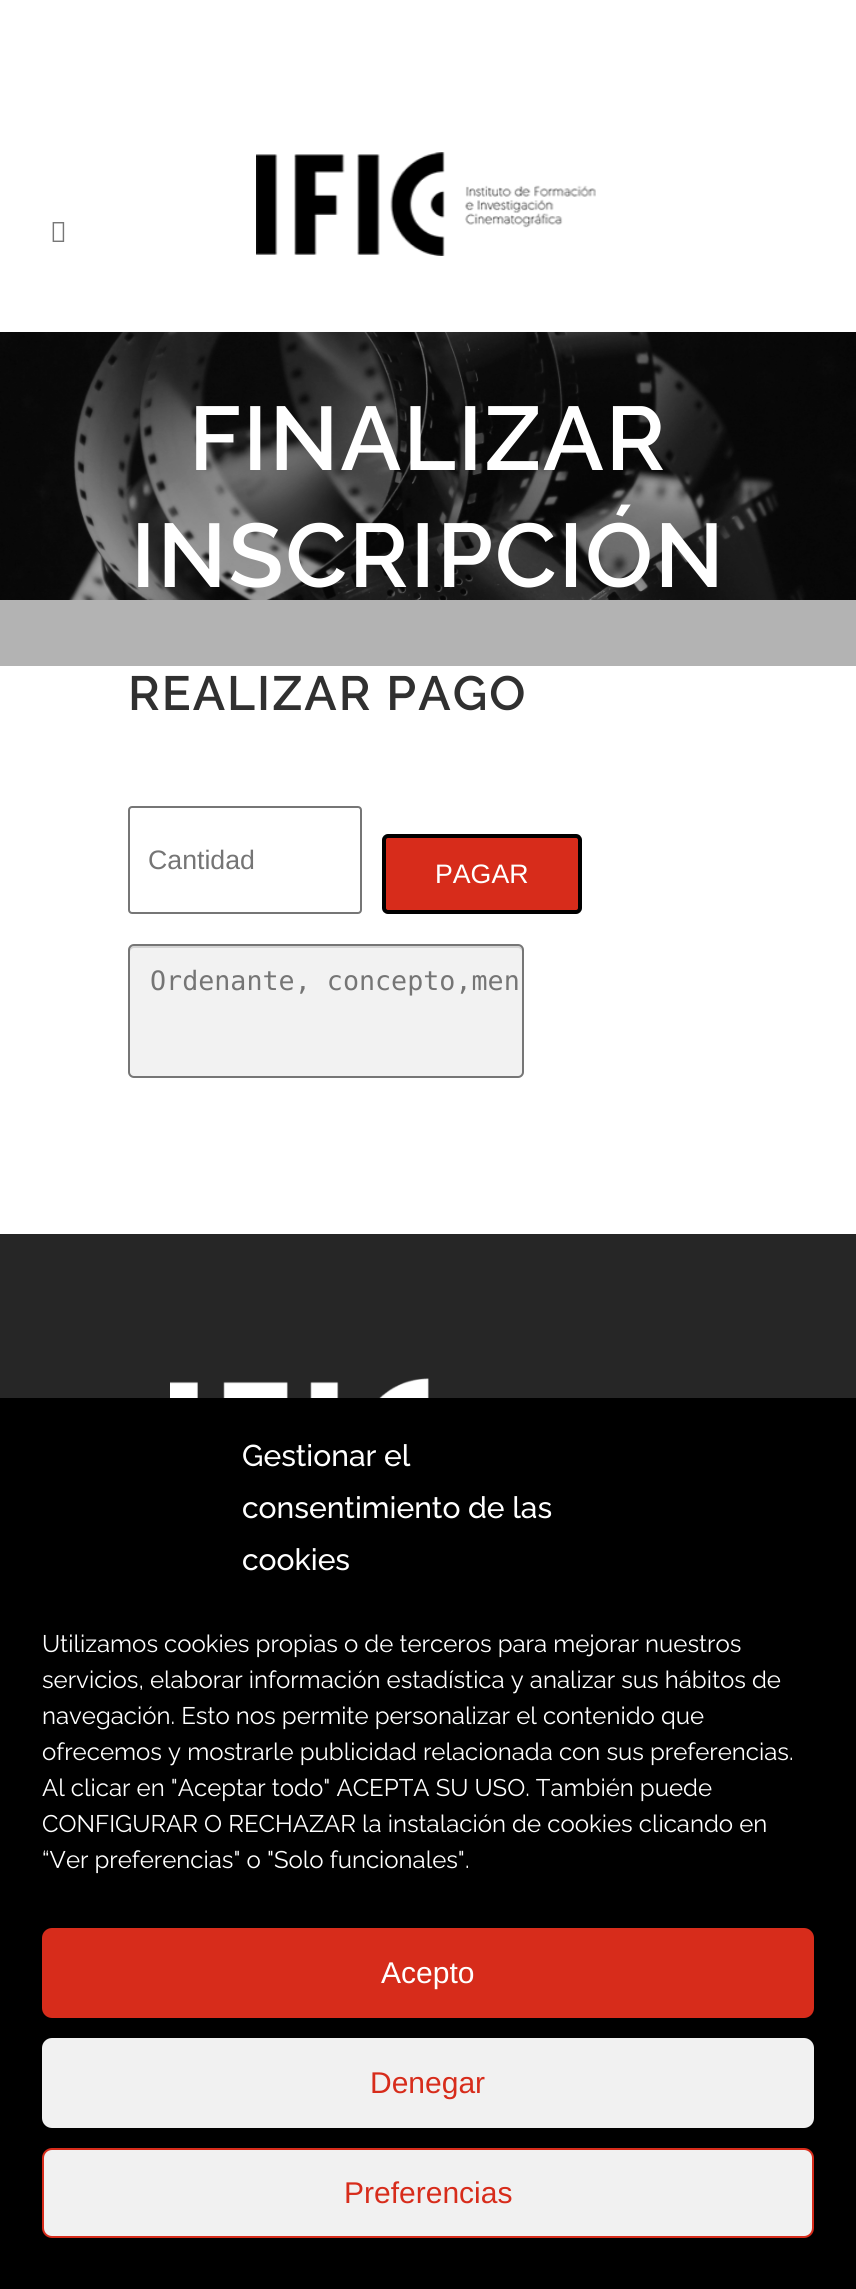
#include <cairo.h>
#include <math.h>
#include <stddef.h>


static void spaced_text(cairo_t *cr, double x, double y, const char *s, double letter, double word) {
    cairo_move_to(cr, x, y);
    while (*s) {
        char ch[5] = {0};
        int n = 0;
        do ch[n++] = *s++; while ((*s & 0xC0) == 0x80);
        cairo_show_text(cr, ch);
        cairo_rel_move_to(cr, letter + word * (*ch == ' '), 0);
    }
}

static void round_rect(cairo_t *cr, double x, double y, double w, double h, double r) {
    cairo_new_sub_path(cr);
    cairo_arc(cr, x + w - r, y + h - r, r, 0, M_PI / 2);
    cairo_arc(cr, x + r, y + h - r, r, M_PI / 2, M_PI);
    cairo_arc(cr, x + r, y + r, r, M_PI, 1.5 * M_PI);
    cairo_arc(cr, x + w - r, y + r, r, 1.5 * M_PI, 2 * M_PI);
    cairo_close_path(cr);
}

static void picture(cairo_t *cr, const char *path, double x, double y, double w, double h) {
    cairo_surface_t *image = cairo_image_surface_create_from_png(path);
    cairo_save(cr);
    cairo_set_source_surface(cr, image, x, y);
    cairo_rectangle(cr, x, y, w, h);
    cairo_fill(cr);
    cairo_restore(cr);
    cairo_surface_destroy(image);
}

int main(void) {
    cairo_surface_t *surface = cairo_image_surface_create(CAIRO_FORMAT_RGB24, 856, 2289);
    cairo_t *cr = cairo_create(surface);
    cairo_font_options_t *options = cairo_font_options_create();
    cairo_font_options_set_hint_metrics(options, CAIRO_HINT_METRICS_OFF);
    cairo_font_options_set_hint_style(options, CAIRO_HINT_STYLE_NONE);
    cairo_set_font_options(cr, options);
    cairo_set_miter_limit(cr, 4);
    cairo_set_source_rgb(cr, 1, 1, 1);
    cairo_paint(cr);
    cairo_set_source_rgb(cr, 0.702, 0.702, 0.702);
    cairo_rectangle(cr, 0, 600, 856, 66);
    cairo_fill(cr);
    picture(cr, "img1.png", 52, 222, 13, 20);
    picture(cr, "img2.png", 256, 152, 340, 104);
    picture(cr, "img3.png", 0, 332, 856, 268);
    cairo_select_font_face(cr, "Raleway SemiBold", CAIRO_FONT_SLANT_NORMAL, CAIRO_FONT_WEIGHT_NORMAL);
    cairo_set_font_size(cr, 90);
    cairo_set_source_rgb(cr, 1, 1, 1);
    spaced_text(cr, 189, 470, "FINALIZAR", 2, 0);
    spaced_text(cr, 131, 587, "INSCRIPCIÓN", 2, 0);
    cairo_set_font_size(cr, 48);
    cairo_set_source_rgb(cr, 0.188, 0.188, 0.188);
    spaced_text(cr, 128, 710, "REALIZAR PAGO", 2, 0);
    round_rect(cr, 129, 807, 232, 106, 3);
    cairo_set_source_rgb(cr, 0.463, 0.463, 0.463);
    cairo_stroke(cr);
    cairo_select_font_face(cr, "Liberation Sans", CAIRO_FONT_SLANT_NORMAL, CAIRO_FONT_WEIGHT_NORMAL);
    cairo_set_font_size(cr, 26.7);
    cairo_set_source_rgb(cr, 0.459, 0.459, 0.459);
    cairo_move_to(cr, 148, 869);
    cairo_show_text(cr, "Cantidad");
    cairo_set_source_rgb(cr, 0.843, 0.173, 0.106);
    round_rect(cr, 384, 836, 196, 76, 4);
    cairo_fill_preserve(cr);
    cairo_set_source_rgb(cr, 0, 0, 0);
    cairo_set_line_width(cr, 4);
    cairo_stroke(cr);
    cairo_set_source_rgb(cr, 1, 1, 1);
    cairo_move_to(cr, 435, 883);
    cairo_show_text(cr, "PAGAR");
    cairo_set_source_rgb(cr, 0.949, 0.949, 0.949);
    round_rect(cr, 128, 944, 396, 134, 6);
    cairo_fill(cr);
    cairo_set_source_rgb(cr, 0.831, 0.831, 0.831);
    cairo_new_path(cr);
    cairo_move_to(cr, 134, 948);
    cairo_line_to(cr, 518, 948);
    cairo_curve_to(cr, 520, 948, 522, 950, 522, 952);
    cairo_line_to(cr, 522, 950);
    cairo_curve_to(cr, 522, 948, 520, 946, 518, 946);
    cairo_line_to(cr, 134, 946);
    cairo_curve_to(cr, 132, 946, 130, 948, 130, 950);
    cairo_line_to(cr, 130, 952);
    cairo_curve_to(cr, 130, 950, 132, 948, 134, 948);
    cairo_close_path(cr);
    cairo_fill(cr);
    round_rect(cr, 129, 945, 394, 132, 5);
    cairo_set_source_rgb(cr, 0.463, 0.463, 0.463);
    cairo_set_line_width(cr, 2);
    cairo_stroke(cr);
    cairo_select_font_face(cr, "DejaVu Sans Mono", CAIRO_FONT_SLANT_NORMAL, CAIRO_FONT_WEIGHT_NORMAL);
    cairo_set_source_rgb(cr, 0.459, 0.459, 0.459);
    cairo_move_to(cr, 150, 990);
    cairo_show_text(cr, "Ordenante, concepto,men");
    cairo_set_source_rgb(cr, 0.149, 0.149, 0.149);
    cairo_rectangle(cr, 0, 1234, 856, 164);
    cairo_fill(cr);
    picture(cr, "img4.png", 170, 1378, 259, 20);
    cairo_set_source_rgb(cr, 0, 0, 0);
    cairo_rectangle(cr, 0, 1398, 856, 891);
    cairo_fill(cr);
    cairo_select_font_face(cr, "Raleway Medium", CAIRO_FONT_SLANT_NORMAL, CAIRO_FONT_WEIGHT_NORMAL);
    cairo_set_font_size(cr, 30);
    cairo_set_source_rgb(cr, 1, 1, 1);
    cairo_move_to(cr, 242, 1466);
    cairo_show_text(cr, "Gestionar el");
    cairo_move_to(cr, 242, 1518);
    cairo_show_text(cr, "consentimiento de las");
    cairo_move_to(cr, 242, 1570);
    cairo_show_text(cr, "cookies");
    cairo_select_font_face(cr, "Raleway", CAIRO_FONT_SLANT_NORMAL, CAIRO_FONT_WEIGHT_NORMAL);
    cairo_set_font_size(cr, 24);
    cairo_move_to(cr, 42, 1652);
    cairo_show_text(cr, "Utilizamos cookies propias o de terceros para mejorar nuestros");
    cairo_move_to(cr, 42, 1688);
    cairo_show_text(cr, "servicios, elaborar información estadística y analizar sus hábitos de");
    cairo_move_to(cr, 42, 1724);
    cairo_show_text(cr, "navegación. Esto nos permite personalizar el contenido que");
    cairo_move_to(cr, 42, 1760);
    cairo_show_text(cr, "ofrecemos y mostrarle publicidad relacionada con sus preferencias.");
    cairo_move_to(cr, 42, 1796);
    cairo_show_text(cr, "Al clicar en \"Aceptar todo\" ACEPTA SU USO. También puede");
    cairo_move_to(cr, 42, 1832);
    cairo_show_text(cr, "CONFIGURAR O RECHAZAR la instalación de cookies clicando en");
    cairo_move_to(cr, 42, 1868);
    cairo_show_text(cr, "“Ver preferencias\" o \"Solo funcionales\".");
    cairo_set_source_rgb(cr, 0.843, 0.173, 0.106);
    round_rect(cr, 43, 1929, 770, 88, 9);
    cairo_fill_preserve(cr);
    cairo_stroke(cr);
    cairo_select_font_face(cr, "Liberation Sans", CAIRO_FONT_SLANT_NORMAL, CAIRO_FONT_WEIGHT_NORMAL);
    cairo_set_font_size(cr, 30);
    cairo_set_source_rgb(cr, 1, 1, 1);
    cairo_move_to(cr, 381, 1983);
    cairo_show_text(cr, "Acepto");
    cairo_set_source_rgb(cr, 0.945, 0.945, 0.945);
    round_rect(cr, 43, 2039, 770, 88, 9);
    cairo_fill_preserve(cr);
    cairo_stroke(cr);
    cairo_set_source_rgb(cr, 0.843, 0.173, 0.106);
    cairo_move_to(cr, 370, 2093);
    cairo_show_text(cr, "Denegar");
    cairo_set_source_rgb(cr, 0.945, 0.945, 0.945);
    round_rect(cr, 43, 2149, 770, 88, 9);
    cairo_fill_preserve(cr);
    cairo_set_source_rgb(cr, 0.843, 0.173, 0.106);
    cairo_stroke(cr);
    cairo_move_to(cr, 344, 2203);
    cairo_show_text(cr, "Preferencias");
    cairo_surface_write_to_png(surface, "page.png");
    cairo_font_options_destroy(options);
    cairo_destroy(cr);
    cairo_surface_destroy(surface);
    return 0;
}
